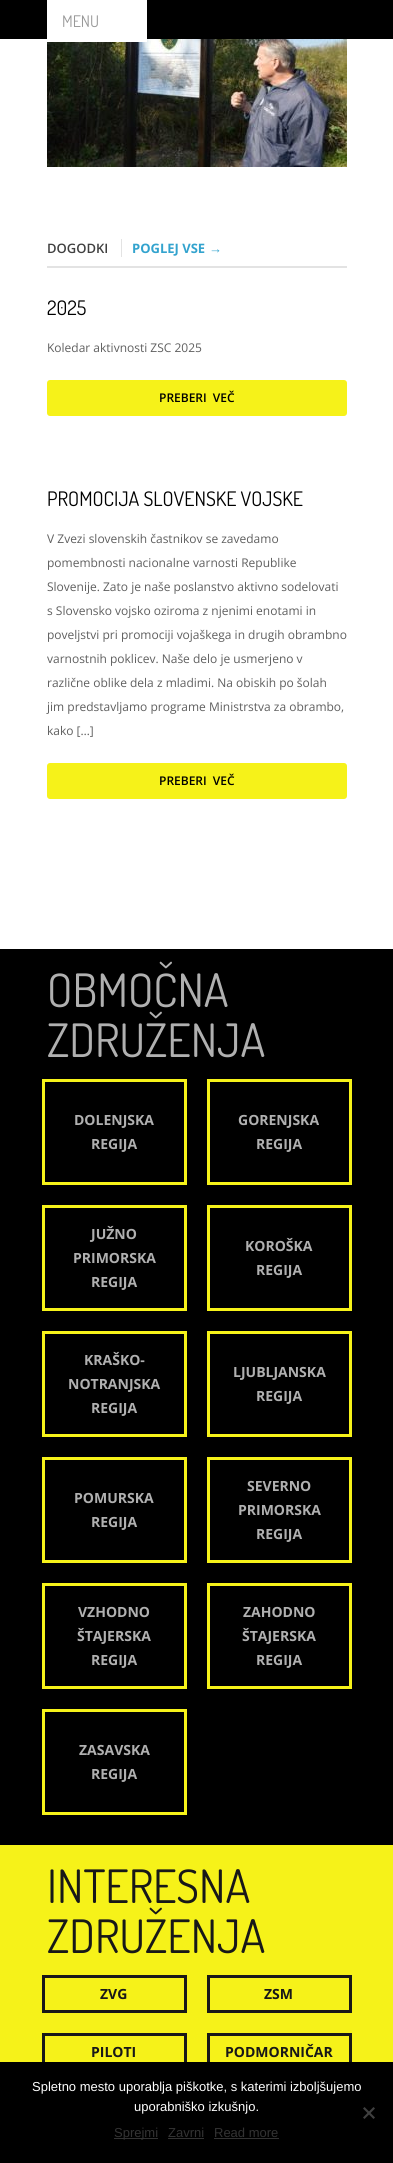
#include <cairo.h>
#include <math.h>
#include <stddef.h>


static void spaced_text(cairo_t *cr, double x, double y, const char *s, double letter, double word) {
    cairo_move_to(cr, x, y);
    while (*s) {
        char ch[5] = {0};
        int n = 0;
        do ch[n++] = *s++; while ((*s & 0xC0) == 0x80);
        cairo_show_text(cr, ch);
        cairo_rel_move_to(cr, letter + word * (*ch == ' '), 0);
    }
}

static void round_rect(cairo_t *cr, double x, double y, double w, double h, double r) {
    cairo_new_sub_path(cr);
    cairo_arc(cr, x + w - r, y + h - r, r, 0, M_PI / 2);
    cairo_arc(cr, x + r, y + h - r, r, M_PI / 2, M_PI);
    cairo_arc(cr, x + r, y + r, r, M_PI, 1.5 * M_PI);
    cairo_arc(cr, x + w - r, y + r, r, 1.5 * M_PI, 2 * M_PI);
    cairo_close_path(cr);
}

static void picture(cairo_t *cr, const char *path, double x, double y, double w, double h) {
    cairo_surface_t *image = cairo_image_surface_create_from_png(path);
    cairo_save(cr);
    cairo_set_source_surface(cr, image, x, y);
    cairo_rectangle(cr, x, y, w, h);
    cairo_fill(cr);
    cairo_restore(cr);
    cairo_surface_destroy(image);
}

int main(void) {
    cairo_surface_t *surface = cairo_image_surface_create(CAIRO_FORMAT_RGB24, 393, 2163);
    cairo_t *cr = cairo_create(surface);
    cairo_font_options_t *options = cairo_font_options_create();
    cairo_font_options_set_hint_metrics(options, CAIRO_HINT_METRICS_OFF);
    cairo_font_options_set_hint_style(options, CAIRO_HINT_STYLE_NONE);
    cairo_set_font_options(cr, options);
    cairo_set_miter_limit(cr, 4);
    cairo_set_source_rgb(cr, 1, 1, 1);
    cairo_paint(cr);
    cairo_set_source_rgb(cr, 0, 0, 0);
    cairo_rectangle(cr, 0, 0, 393, 39);
    cairo_fill(cr);
    picture(cr, "img1.png", 47, 39, 300, 128);
    cairo_set_source_rgb(cr, 1, 1, 1);
    cairo_rectangle(cr, 47, 0, 100, 42);
    cairo_fill(cr);
    cairo_select_font_face(cr, "Dosis", CAIRO_FONT_SLANT_NORMAL, CAIRO_FONT_WEIGHT_NORMAL);
    cairo_set_font_size(cr, 16);
    cairo_set_source_rgb(cr, 0.6, 0.6, 0.6);
    cairo_move_to(cr, 62, 27);
    cairo_show_text(cr, "MENU");
    cairo_set_source_rgb(cr, 0.89, 0.89, 0.89);
    cairo_rectangle(cr, 47, 266, 300, 2);
    cairo_fill(cr);
    cairo_select_font_face(cr, "Open Sans SemiBold", CAIRO_FONT_SLANT_NORMAL, CAIRO_FONT_WEIGHT_NORMAL);
    cairo_set_font_size(cr, 13);
    cairo_set_source_rgb(cr, 0.251, 0.251, 0.251);
    cairo_move_to(cr, 47, 253);
    cairo_show_text(cr, "DOGODKI");
    cairo_select_font_face(cr, "Open Sans", CAIRO_FONT_SLANT_NORMAL, CAIRO_FONT_WEIGHT_BOLD);
    cairo_set_source_rgb(cr, 0.2, 0.639, 0.808);
    cairo_move_to(cr, 132, 253);
    cairo_show_text(cr, "POGLEJ VSE");
    cairo_set_source_rgb(cr, 0.89, 0.89, 0.89);
    cairo_rectangle(cr, 121, 239, 1, 18);
    cairo_fill(cr);
    cairo_select_font_face(cr, "Liberation Sans", CAIRO_FONT_SLANT_NORMAL, CAIRO_FONT_WEIGHT_BOLD);
    cairo_set_source_rgb(cr, 0.2, 0.639, 0.808);
    cairo_move_to(cr, 209, 253);
    cairo_show_text(cr, "→");
    cairo_select_font_face(cr, "Dosis", CAIRO_FONT_SLANT_NORMAL, CAIRO_FONT_WEIGHT_NORMAL);
    cairo_set_font_size(cr, 20);
    cairo_set_source_rgb(cr, 0, 0, 0);
    cairo_move_to(cr, 47, 315);
    cairo_show_text(cr, "2025");
    cairo_select_font_face(cr, "Open Sans", CAIRO_FONT_SLANT_NORMAL, CAIRO_FONT_WEIGHT_NORMAL);
    cairo_set_font_size(cr, 12);
    cairo_set_source_rgb(cr, 0.373, 0.373, 0.373);
    cairo_move_to(cr, 47, 352);
    cairo_show_text(cr, "Koledar aktivnosti ZSC 2025");
    cairo_set_source_rgb(cr, 0.961, 0.949, 0.098);
    round_rect(cr, 47, 380, 300, 36, 3);
    cairo_fill(cr);
    cairo_select_font_face(cr, "Open Sans SemiBold", CAIRO_FONT_SLANT_NORMAL, CAIRO_FONT_WEIGHT_NORMAL);
    cairo_set_source_rgb(cr, 0, 0, 0);
    spaced_text(cr, 159, 402, "PREBERI VEČ", 0, 3);
    cairo_select_font_face(cr, "Dosis", CAIRO_FONT_SLANT_NORMAL, CAIRO_FONT_WEIGHT_NORMAL);
    cairo_set_font_size(cr, 20);
    cairo_move_to(cr, 47, 506);
    cairo_show_text(cr, "PROMOCIJA SLOVENSKE VOJSKE");
    cairo_select_font_face(cr, "Open Sans", CAIRO_FONT_SLANT_NORMAL, CAIRO_FONT_WEIGHT_NORMAL);
    cairo_set_font_size(cr, 12);
    cairo_set_source_rgb(cr, 0.373, 0.373, 0.373);
    cairo_move_to(cr, 47, 543);
    cairo_show_text(cr, "V Zvezi slovenskih častnikov se zavedamo");
    cairo_move_to(cr, 47, 567);
    cairo_show_text(cr, "pomembnosti nacionalne varnosti Republike");
    cairo_move_to(cr, 47, 591);
    cairo_show_text(cr, "Slovenije. Zato je naše poslanstvo aktivno sodelovati");
    cairo_move_to(cr, 47, 615);
    cairo_show_text(cr, "s Slovensko vojsko oziroma z njenimi enotami in");
    cairo_move_to(cr, 47, 639);
    cairo_show_text(cr, "poveljstvi pri promociji vojaškega in drugih obrambno");
    cairo_move_to(cr, 47, 663);
    cairo_show_text(cr, "varnostnih poklicev. Naše delo je usmerjeno v");
    cairo_move_to(cr, 47, 687);
    cairo_show_text(cr, "različne oblike dela z mladimi. Na obiskih po šolah");
    cairo_move_to(cr, 47, 711);
    cairo_show_text(cr, "jim predstavljamo programe Ministrstva za obrambo,");
    cairo_move_to(cr, 47, 735);
    cairo_show_text(cr, "kako […]");
    cairo_set_source_rgb(cr, 0.961, 0.949, 0.098);
    round_rect(cr, 47, 763, 300, 36, 3);
    cairo_fill(cr);
    cairo_select_font_face(cr, "Open Sans SemiBold", CAIRO_FONT_SLANT_NORMAL, CAIRO_FONT_WEIGHT_NORMAL);
    cairo_set_source_rgb(cr, 0, 0, 0);
    spaced_text(cr, 159, 785, "PREBERI VEČ", 0, 3);
    cairo_rectangle(cr, 0, 949, 393, 896);
    cairo_fill(cr);
    cairo_select_font_face(cr, "Dosis", CAIRO_FONT_SLANT_NORMAL, CAIRO_FONT_WEIGHT_NORMAL);
    cairo_set_font_size(cr, 46);
    cairo_set_source_rgb(cr, 0.69, 0.69, 0.69);
    cairo_move_to(cr, 47, 1007);
    cairo_show_text(cr, "OBMOČNA");
    cairo_move_to(cr, 47, 1057);
    cairo_show_text(cr, "ZDRUŽENJA");
    cairo_rectangle(cr, 43.5, 1080.5, 142, 103);
    cairo_set_source_rgb(cr, 0.961, 0.949, 0.098);
    cairo_set_line_width(cr, 3);
    cairo_stroke(cr);
    cairo_select_font_face(cr, "Open Sans", CAIRO_FONT_SLANT_NORMAL, CAIRO_FONT_WEIGHT_BOLD);
    cairo_set_font_size(cr, 14);
    cairo_set_source_rgb(cr, 0.69, 0.69, 0.69);
    cairo_move_to(cr, 74, 1125);
    cairo_show_text(cr, "DOLENJSKA");
    cairo_move_to(cr, 91, 1149);
    cairo_show_text(cr, "REGIJA");
    cairo_rectangle(cr, 208.5, 1080.5, 142, 103);
    cairo_set_source_rgb(cr, 0.961, 0.949, 0.098);
    cairo_stroke(cr);
    cairo_set_source_rgb(cr, 0.69, 0.69, 0.69);
    cairo_move_to(cr, 238, 1125);
    cairo_show_text(cr, "GORENJSKA");
    cairo_move_to(cr, 256, 1149);
    cairo_show_text(cr, "REGIJA");
    cairo_rectangle(cr, 43.5, 1206.5, 142, 103);
    cairo_set_source_rgb(cr, 0.961, 0.949, 0.098);
    cairo_stroke(cr);
    cairo_set_source_rgb(cr, 0.69, 0.69, 0.69);
    cairo_move_to(cr, 91, 1239);
    cairo_show_text(cr, "JUŽNO");
    cairo_move_to(cr, 73, 1263);
    cairo_show_text(cr, "PRIMORSKA");
    cairo_move_to(cr, 91, 1287);
    cairo_show_text(cr, "REGIJA");
    cairo_rectangle(cr, 208.5, 1206.5, 142, 103);
    cairo_set_source_rgb(cr, 0.961, 0.949, 0.098);
    cairo_stroke(cr);
    cairo_set_source_rgb(cr, 0.69, 0.69, 0.69);
    cairo_move_to(cr, 245, 1251);
    cairo_show_text(cr, "KOROŠKA");
    cairo_move_to(cr, 256, 1275);
    cairo_show_text(cr, "REGIJA");
    cairo_rectangle(cr, 43.5, 1332.5, 142, 103);
    cairo_set_source_rgb(cr, 0.961, 0.949, 0.098);
    cairo_stroke(cr);
    cairo_set_source_rgb(cr, 0.69, 0.69, 0.69);
    cairo_move_to(cr, 84, 1365);
    cairo_show_text(cr, "KRAŠKO-");
    cairo_move_to(cr, 68, 1389);
    cairo_show_text(cr, "NOTRANJSKA");
    cairo_move_to(cr, 91, 1413);
    cairo_show_text(cr, "REGIJA");
    cairo_rectangle(cr, 208.5, 1332.5, 142, 103);
    cairo_set_source_rgb(cr, 0.961, 0.949, 0.098);
    cairo_stroke(cr);
    cairo_set_source_rgb(cr, 0.69, 0.69, 0.69);
    cairo_move_to(cr, 233, 1377);
    cairo_show_text(cr, "LJUBLJANSKA");
    cairo_move_to(cr, 256, 1401);
    cairo_show_text(cr, "REGIJA");
    cairo_rectangle(cr, 43.5, 1458.5, 142, 103);
    cairo_set_source_rgb(cr, 0.961, 0.949, 0.098);
    cairo_stroke(cr);
    cairo_set_source_rgb(cr, 0.69, 0.69, 0.69);
    cairo_move_to(cr, 74, 1503);
    cairo_show_text(cr, "POMURSKA");
    cairo_move_to(cr, 91, 1527);
    cairo_show_text(cr, "REGIJA");
    cairo_rectangle(cr, 208.5, 1458.5, 142, 103);
    cairo_set_source_rgb(cr, 0.961, 0.949, 0.098);
    cairo_stroke(cr);
    cairo_set_source_rgb(cr, 0.69, 0.69, 0.69);
    cairo_move_to(cr, 247, 1491);
    cairo_show_text(cr, "SEVERNO");
    cairo_move_to(cr, 238, 1515);
    cairo_show_text(cr, "PRIMORSKA");
    cairo_move_to(cr, 256, 1539);
    cairo_show_text(cr, "REGIJA");
    cairo_rectangle(cr, 43.5, 1584.5, 142, 103);
    cairo_set_source_rgb(cr, 0.961, 0.949, 0.098);
    cairo_stroke(cr);
    cairo_set_source_rgb(cr, 0.69, 0.69, 0.69);
    cairo_move_to(cr, 78, 1617);
    cairo_show_text(cr, "VZHODNO");
    cairo_move_to(cr, 77, 1641);
    cairo_show_text(cr, "ŠTAJERSKA");
    cairo_move_to(cr, 91, 1665);
    cairo_show_text(cr, "REGIJA");
    cairo_rectangle(cr, 208.5, 1584.5, 142, 103);
    cairo_set_source_rgb(cr, 0.961, 0.949, 0.098);
    cairo_stroke(cr);
    cairo_set_source_rgb(cr, 0.69, 0.69, 0.69);
    cairo_move_to(cr, 243, 1617);
    cairo_show_text(cr, "ZAHODNO");
    cairo_move_to(cr, 242, 1641);
    cairo_show_text(cr, "ŠTAJERSKA");
    cairo_move_to(cr, 256, 1665);
    cairo_show_text(cr, "REGIJA");
    cairo_rectangle(cr, 43.5, 1710.5, 142, 103);
    cairo_set_source_rgb(cr, 0.961, 0.949, 0.098);
    cairo_stroke(cr);
    cairo_set_source_rgb(cr, 0.69, 0.69, 0.69);
    cairo_move_to(cr, 79, 1755);
    cairo_show_text(cr, "ZASAVSKA");
    cairo_move_to(cr, 91, 1779);
    cairo_show_text(cr, "REGIJA");
    cairo_set_source_rgb(cr, 0.961, 0.949, 0.098);
    cairo_rectangle(cr, 0, 1845, 393, 217);
    cairo_fill(cr);
    cairo_select_font_face(cr, "Dosis", CAIRO_FONT_SLANT_NORMAL, CAIRO_FONT_WEIGHT_NORMAL);
    cairo_set_font_size(cr, 46);
    cairo_set_source_rgb(cr, 0.094, 0.094, 0.094);
    cairo_move_to(cr, 47, 1903);
    cairo_show_text(cr, "INTERESNA");
    cairo_move_to(cr, 47, 1953);
    cairo_show_text(cr, "ZDRUŽENJA");
    cairo_rectangle(cr, 43.5, 1976.5, 142, 35);
    cairo_stroke(cr);
    cairo_select_font_face(cr, "Open Sans", CAIRO_FONT_SLANT_NORMAL, CAIRO_FONT_WEIGHT_BOLD);
    cairo_set_font_size(cr, 14);
    cairo_move_to(cr, 100, 1999);
    cairo_show_text(cr, "ZVG");
    cairo_rectangle(cr, 208.5, 1976.5, 142, 35);
    cairo_stroke(cr);
    cairo_move_to(cr, 264, 1999);
    cairo_show_text(cr, "ZSM");
    cairo_rectangle(cr, 43.5, 2034.5, 142, 35);
    cairo_stroke(cr);
    cairo_move_to(cr, 91, 2057);
    cairo_show_text(cr, "PILOTI");
    cairo_rectangle(cr, 208.5, 2034.5, 142, 35);
    cairo_stroke(cr);
    cairo_move_to(cr, 225, 2057);
    cairo_show_text(cr, "PODMORNIČAR");
    cairo_set_source_rgb(cr, 0, 0, 0);
    cairo_rectangle(cr, 0, 2062, 393, 101);
    cairo_fill(cr);
    cairo_select_font_face(cr, "Liberation Sans", CAIRO_FONT_SLANT_NORMAL, CAIRO_FONT_WEIGHT_NORMAL);
    cairo_set_font_size(cr, 13);
    cairo_set_source_rgb(cr, 1, 1, 1);
    cairo_move_to(cr, 32, 2091);
    cairo_show_text(cr, "Spletno mesto uporablja piškotke, s katerimi izboljšujemo");
    cairo_move_to(cr, 134, 2111);
    cairo_show_text(cr, "uporabniško izkušnjo.");
    cairo_set_source_rgb(cr, 0.251, 0.251, 0.251);
    cairo_new_path(cr);
    cairo_move_to(cr, 373.5, 2107);
    cairo_line_to(cr, 375, 2108.5);
    cairo_line_to(cr, 364.5, 2119);
    cairo_line_to(cr, 363, 2117.5);
    cairo_close_path(cr);
    cairo_fill(cr);
    cairo_new_path(cr);
    cairo_move_to(cr, 363, 2108.5);
    cairo_line_to(cr, 364.5, 2107);
    cairo_line_to(cr, 375, 2117.5);
    cairo_line_to(cr, 373.5, 2119);
    cairo_close_path(cr);
    cairo_fill(cr);
    cairo_set_source_rgb(cr, 0.2, 0.2, 0.2);
    cairo_rectangle(cr, 114, 2138, 44, 1);
    cairo_fill(cr);
    cairo_move_to(cr, 114, 2137);
    cairo_show_text(cr, "Sprejmi");
    cairo_move_to(cr, 168, 2137);
    cairo_show_text(cr, "Zavrni");
    cairo_rectangle(cr, 168, 2138, 36, 1);
    cairo_fill(cr);
    cairo_move_to(cr, 214, 2137);
    cairo_show_text(cr, "Read more");
    cairo_rectangle(cr, 214, 2138, 65, 1);
    cairo_fill(cr);
    cairo_surface_write_to_png(surface, "page.png");
    cairo_font_options_destroy(options);
    cairo_destroy(cr);
    cairo_surface_destroy(surface);
    return 0;
}
